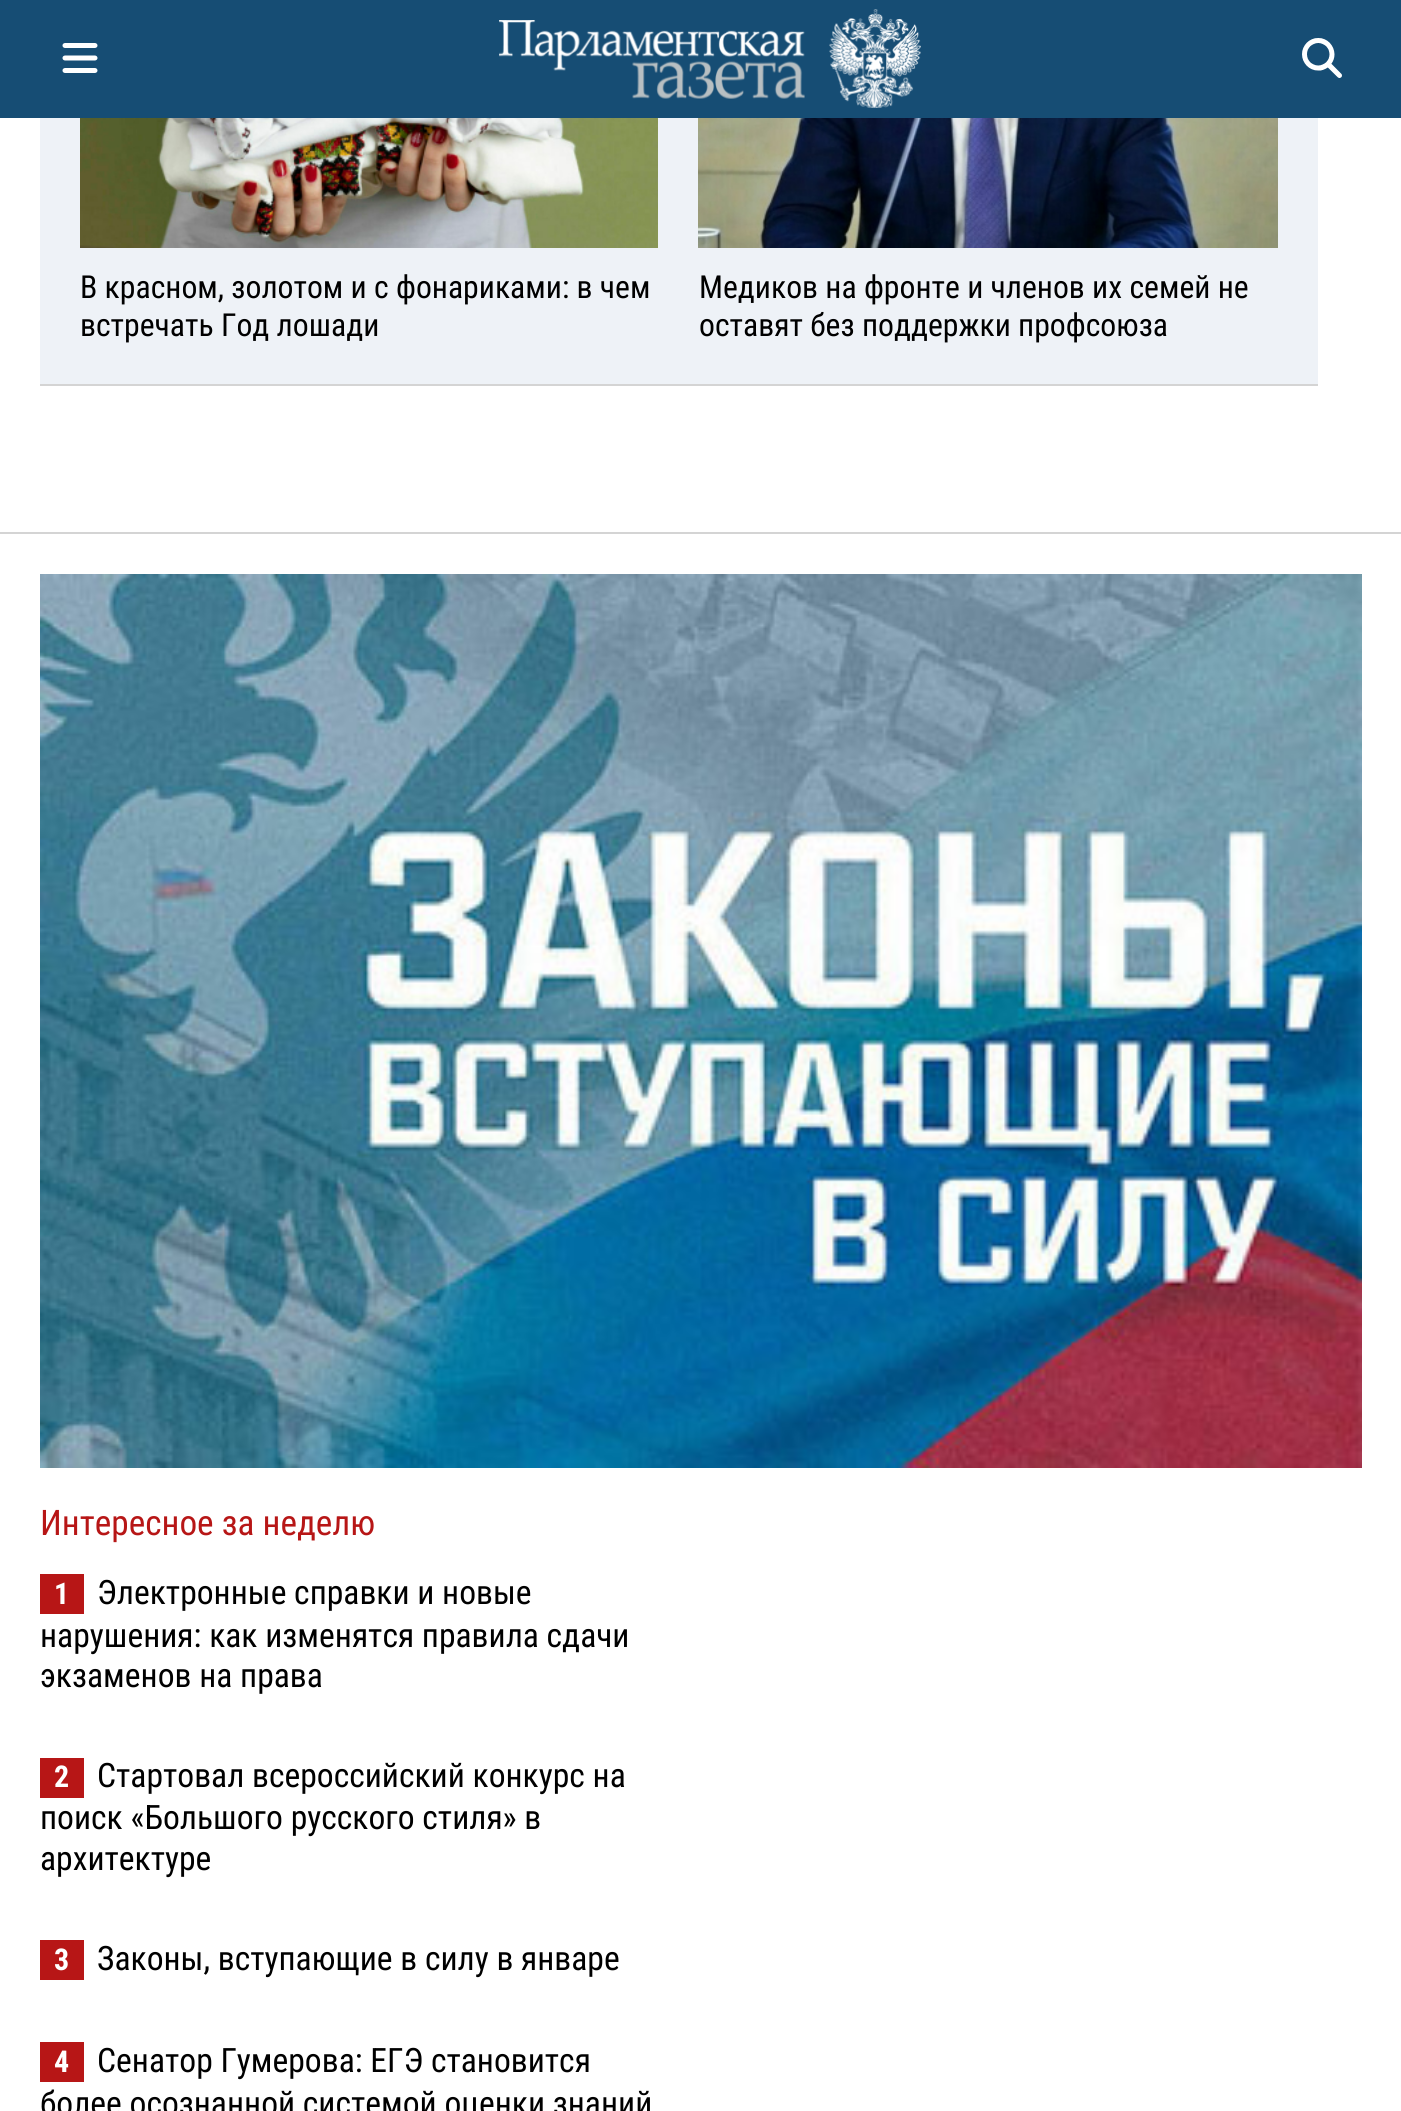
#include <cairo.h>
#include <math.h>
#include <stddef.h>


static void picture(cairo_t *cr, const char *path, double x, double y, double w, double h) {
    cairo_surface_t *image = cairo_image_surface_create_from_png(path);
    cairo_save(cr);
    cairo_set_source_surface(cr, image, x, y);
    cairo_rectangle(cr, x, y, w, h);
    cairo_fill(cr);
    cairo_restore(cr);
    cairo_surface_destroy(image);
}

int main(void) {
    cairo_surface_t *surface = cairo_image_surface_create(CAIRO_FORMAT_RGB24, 1401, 2111);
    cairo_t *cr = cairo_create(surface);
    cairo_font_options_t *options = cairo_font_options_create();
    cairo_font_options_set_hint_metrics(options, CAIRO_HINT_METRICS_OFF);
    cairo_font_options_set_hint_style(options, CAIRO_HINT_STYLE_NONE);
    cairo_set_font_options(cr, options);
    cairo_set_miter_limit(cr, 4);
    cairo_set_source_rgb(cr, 1, 1, 1);
    cairo_paint(cr);
    cairo_set_source_rgb(cr, 0.086, 0.302, 0.455);
    cairo_rectangle(cr, 0, 0, 1401, 118);
    cairo_fill(cr);
    picture(cr, "img1.png", 62, 43, 36, 30);
    picture(cr, "img2.png", 499, 9, 422, 99);
    picture(cr, "img3.png", 1302, 38, 40, 40);
    cairo_set_source_rgb(cr, 0.933, 0.949, 0.965);
    cairo_rectangle(cr, 40, 118, 1278, 266);
    cairo_fill(cr);
    cairo_set_source_rgb(cr, 0.831, 0.831, 0.831);
    cairo_rectangle(cr, 40, 384, 1278, 2);
    cairo_fill(cr);
    picture(cr, "img4.png", 80, 118, 578, 130);
    cairo_select_font_face(cr, "Roboto Condensed", CAIRO_FONT_SLANT_NORMAL, CAIRO_FONT_WEIGHT_NORMAL);
    cairo_set_font_size(cr, 31.7);
    cairo_set_source_rgb(cr, 0, 0, 0);
    cairo_move_to(cr, 80, 298);
    cairo_show_text(cr, "В красном, золотом и с фонариками: в чем");
    cairo_move_to(cr, 80, 336);
    cairo_show_text(cr, "встречать Год лошади");
    picture(cr, "img5.png", 698, 118, 580, 130);
    cairo_move_to(cr, 699, 298);
    cairo_show_text(cr, "Медиков на фронте и членов их семей не");
    cairo_move_to(cr, 699, 336);
    cairo_show_text(cr, "оставят без поддержки профсоюза");
    cairo_set_source_rgb(cr, 0.831, 0.831, 0.831);
    cairo_rectangle(cr, 0, 532, 1401, 2);
    cairo_fill(cr);
    picture(cr, "img6.png", 40, 574, 1322, 894);
    cairo_set_font_size(cr, 35.25);
    cairo_set_source_rgb(cr, 0.718, 0.086, 0.086);
    cairo_move_to(cr, 40, 1535);
    cairo_show_text(cr, "Интересное за неделю");
    cairo_rectangle(cr, 40, 1574, 44, 40);
    cairo_fill(cr);
    cairo_select_font_face(cr, "Roboto Condensed", CAIRO_FONT_SLANT_NORMAL, CAIRO_FONT_WEIGHT_BOLD);
    cairo_set_font_size(cr, 30);
    cairo_set_source_rgb(cr, 1, 1, 1);
    cairo_move_to(cr, 54, 1604);
    cairo_show_text(cr, "1");
    cairo_select_font_face(cr, "Roboto Condensed", CAIRO_FONT_SLANT_NORMAL, CAIRO_FONT_WEIGHT_NORMAL);
    cairo_set_font_size(cr, 33.6);
    cairo_set_source_rgb(cr, 0, 0, 0);
    cairo_move_to(cr, 97, 1604);
    cairo_show_text(cr, "Электронные справки и новые");
    cairo_move_to(cr, 40, 1647);
    cairo_show_text(cr, "нарушения: как изменятся правила сдачи");
    cairo_move_to(cr, 40, 1687);
    cairo_show_text(cr, "экзаменов на права");
    cairo_set_source_rgb(cr, 0.718, 0.086, 0.086);
    cairo_rectangle(cr, 40, 1758, 44, 40);
    cairo_fill(cr);
    cairo_select_font_face(cr, "Roboto Condensed", CAIRO_FONT_SLANT_NORMAL, CAIRO_FONT_WEIGHT_BOLD);
    cairo_set_font_size(cr, 30);
    cairo_set_source_rgb(cr, 1, 1, 1);
    cairo_move_to(cr, 54, 1787);
    cairo_show_text(cr, "2");
    cairo_select_font_face(cr, "Roboto Condensed", CAIRO_FONT_SLANT_NORMAL, CAIRO_FONT_WEIGHT_NORMAL);
    cairo_set_font_size(cr, 33.6);
    cairo_set_source_rgb(cr, 0, 0, 0);
    cairo_move_to(cr, 97, 1787);
    cairo_show_text(cr, "Стартовал всероссийский конкурс на");
    cairo_move_to(cr, 40, 1829);
    cairo_show_text(cr, "поиск «Большого русского стиля» в");
    cairo_move_to(cr, 40, 1870);
    cairo_show_text(cr, "архитектуре");
    cairo_set_source_rgb(cr, 0.718, 0.086, 0.086);
    cairo_rectangle(cr, 40, 1940, 44, 40);
    cairo_fill(cr);
    cairo_select_font_face(cr, "Roboto Condensed", CAIRO_FONT_SLANT_NORMAL, CAIRO_FONT_WEIGHT_BOLD);
    cairo_set_font_size(cr, 30);
    cairo_set_source_rgb(cr, 1, 1, 1);
    cairo_move_to(cr, 54, 1970);
    cairo_show_text(cr, "3");
    cairo_select_font_face(cr, "Roboto Condensed", CAIRO_FONT_SLANT_NORMAL, CAIRO_FONT_WEIGHT_NORMAL);
    cairo_set_font_size(cr, 33.6);
    cairo_set_source_rgb(cr, 0, 0, 0);
    cairo_move_to(cr, 97, 1970);
    cairo_show_text(cr, "Законы, вступающие в силу в январе");
    cairo_set_source_rgb(cr, 0.718, 0.086, 0.086);
    cairo_rectangle(cr, 40, 2042, 44, 40);
    cairo_fill(cr);
    cairo_select_font_face(cr, "Roboto Condensed", CAIRO_FONT_SLANT_NORMAL, CAIRO_FONT_WEIGHT_BOLD);
    cairo_set_font_size(cr, 30);
    cairo_set_source_rgb(cr, 1, 1, 1);
    cairo_move_to(cr, 54, 2072);
    cairo_show_text(cr, "4");
    cairo_select_font_face(cr, "Roboto Condensed", CAIRO_FONT_SLANT_NORMAL, CAIRO_FONT_WEIGHT_NORMAL);
    cairo_set_font_size(cr, 33.6);
    cairo_set_source_rgb(cr, 0, 0, 0);
    cairo_move_to(cr, 97, 2072);
    cairo_show_text(cr, "Сенатор Гумерова: ЕГЭ становится");
    cairo_move_to(cr, 40, 2115);
    cairo_show_text(cr, "более осознанной системой оценки знаний");
    cairo_surface_write_to_png(surface, "page.png");
    cairo_font_options_destroy(options);
    cairo_destroy(cr);
    cairo_surface_destroy(surface);
    return 0;
}
